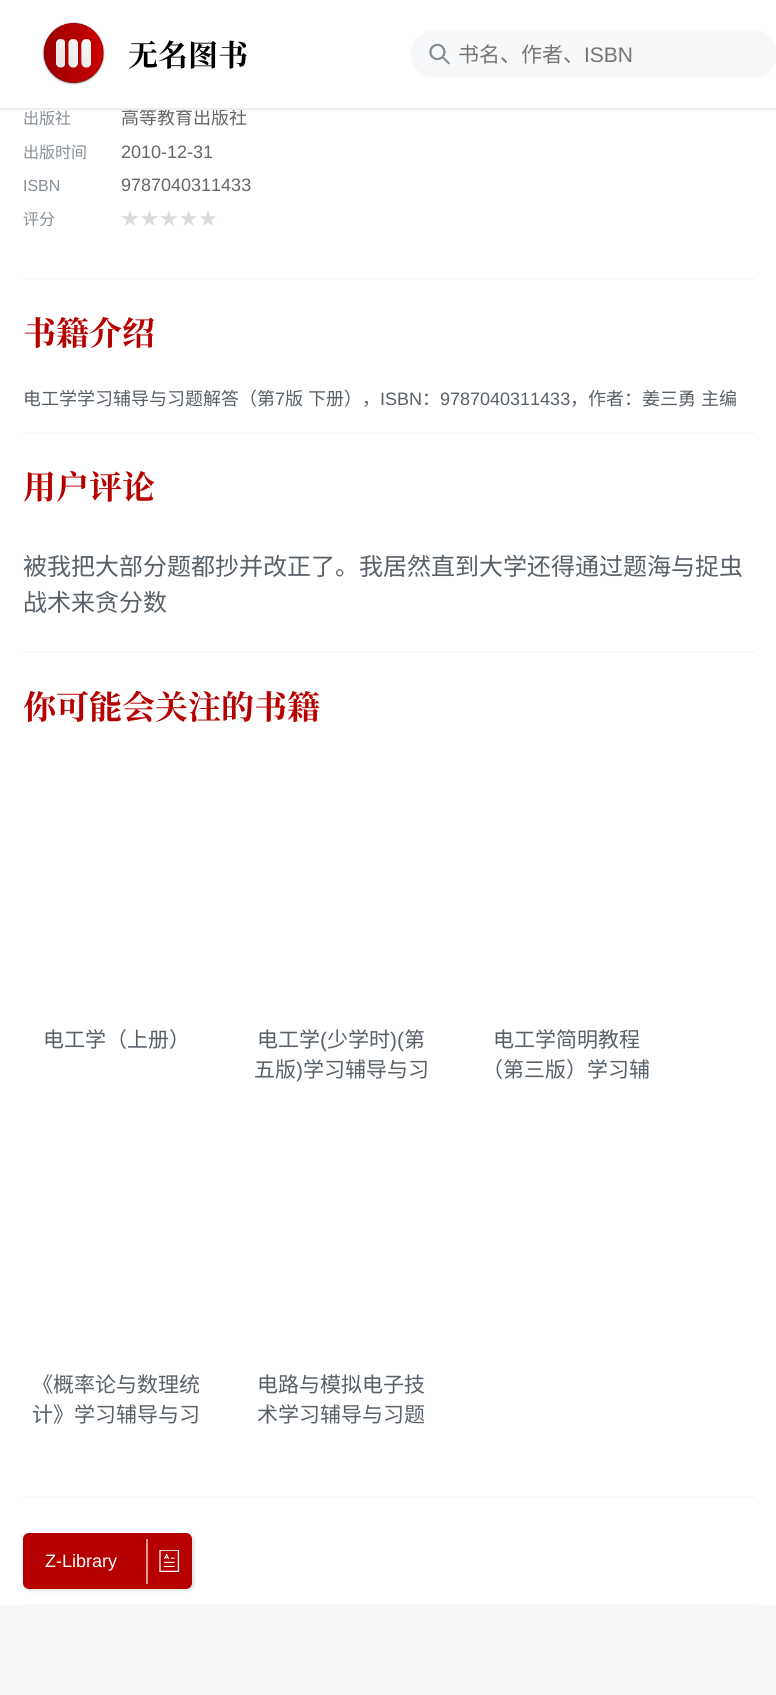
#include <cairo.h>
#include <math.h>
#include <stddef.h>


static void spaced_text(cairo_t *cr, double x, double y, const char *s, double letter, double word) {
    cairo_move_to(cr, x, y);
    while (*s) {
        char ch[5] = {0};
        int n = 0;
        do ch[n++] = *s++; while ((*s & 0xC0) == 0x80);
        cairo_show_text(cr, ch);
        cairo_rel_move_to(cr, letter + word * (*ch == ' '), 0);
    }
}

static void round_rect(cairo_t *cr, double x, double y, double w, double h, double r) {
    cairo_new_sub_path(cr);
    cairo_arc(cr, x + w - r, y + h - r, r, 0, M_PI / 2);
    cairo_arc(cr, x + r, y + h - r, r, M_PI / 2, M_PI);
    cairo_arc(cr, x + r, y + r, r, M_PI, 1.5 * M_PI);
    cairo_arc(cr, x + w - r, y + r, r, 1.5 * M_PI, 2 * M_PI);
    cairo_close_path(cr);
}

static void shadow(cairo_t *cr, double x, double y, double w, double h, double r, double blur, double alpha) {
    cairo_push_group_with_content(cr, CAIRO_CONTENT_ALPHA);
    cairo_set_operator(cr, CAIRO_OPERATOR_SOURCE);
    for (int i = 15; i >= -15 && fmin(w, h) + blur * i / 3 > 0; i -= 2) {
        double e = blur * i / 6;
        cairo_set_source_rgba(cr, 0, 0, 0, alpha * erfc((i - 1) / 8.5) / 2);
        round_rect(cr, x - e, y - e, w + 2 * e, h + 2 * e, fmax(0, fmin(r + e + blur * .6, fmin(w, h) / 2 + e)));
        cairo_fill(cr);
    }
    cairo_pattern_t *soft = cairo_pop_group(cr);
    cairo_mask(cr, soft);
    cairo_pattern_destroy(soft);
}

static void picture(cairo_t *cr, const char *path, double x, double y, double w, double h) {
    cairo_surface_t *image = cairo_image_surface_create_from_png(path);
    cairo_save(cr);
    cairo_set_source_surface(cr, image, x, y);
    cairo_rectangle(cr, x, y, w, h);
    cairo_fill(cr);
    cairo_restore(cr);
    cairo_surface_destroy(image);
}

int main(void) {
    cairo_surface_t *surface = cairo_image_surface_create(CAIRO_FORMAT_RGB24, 776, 1695);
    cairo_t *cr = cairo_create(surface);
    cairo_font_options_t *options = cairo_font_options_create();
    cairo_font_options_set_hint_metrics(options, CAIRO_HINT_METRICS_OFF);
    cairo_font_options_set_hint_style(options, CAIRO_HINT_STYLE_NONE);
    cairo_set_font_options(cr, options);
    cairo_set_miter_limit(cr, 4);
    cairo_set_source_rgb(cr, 0.965, 0.969, 0.976);
    cairo_paint(cr);
    cairo_set_source_rgb(cr, 1, 1, 1);
    cairo_rectangle(cr, 0, 0, 776, 108);
    cairo_fill(cr);
    cairo_rectangle(cr, 0, 110, 776, 1495);
    cairo_fill(cr);
    cairo_select_font_face(cr, "Noto Sans CJK SC", CAIRO_FONT_SLANT_NORMAL, CAIRO_FONT_WEIGHT_NORMAL);
    cairo_set_font_size(cr, 18);
    cairo_set_source_rgb(cr, 0.4, 0.4, 0.4);
    cairo_move_to(cr, 121, 124);
    cairo_show_text(cr, "高等教育出版社");
    cairo_set_source_rgb(cr, 0.922, 0.929, 0.945);
    cairo_rectangle(cr, 0, 108, 776, 2);
    cairo_fill(cr);
    picture(cr, "img1.png", 42, 22, 63, 63);
    cairo_select_font_face(cr, "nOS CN", CAIRO_FONT_SLANT_NORMAL, CAIRO_FONT_WEIGHT_BOLD);
    cairo_set_font_size(cr, 30);
    cairo_set_source_rgb(cr, 0, 0, 0);
    cairo_move_to(cr, 128, 66);
    cairo_show_text(cr, "无名图书");
    cairo_set_source_rgb(cr, 0.965, 0.969, 0.976);
    round_rect(cr, 411, 30, 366, 48, 24);
    cairo_fill(cr);
    picture(cr, "img2.png", 429, 43, 21, 22);
    cairo_select_font_face(cr, "Noto Sans CJK SC", CAIRO_FONT_SLANT_NORMAL, CAIRO_FONT_WEIGHT_NORMAL);
    cairo_set_font_size(cr, 21);
    cairo_set_source_rgb(cr, 0.459, 0.459, 0.459);
    cairo_move_to(cr, 458, 62);
    cairo_show_text(cr, "书名、作者、");
    cairo_select_font_face(cr, "Liberation Sans", CAIRO_FONT_SLANT_NORMAL, CAIRO_FONT_WEIGHT_NORMAL);
    cairo_move_to(cr, 584, 62);
    cairo_show_text(cr, "ISBN");
    cairo_set_source_rgb(cr, 0.973, 0.973, 0.973);
    cairo_rectangle(cr, 23, 278, 732, 2);
    cairo_fill(cr);
    cairo_select_font_face(cr, "Noto Sans CJK SC", CAIRO_FONT_SLANT_NORMAL, CAIRO_FONT_WEIGHT_NORMAL);
    cairo_set_font_size(cr, 16);
    cairo_set_source_rgb(cr, 0.522, 0.557, 0.592);
    cairo_move_to(cr, 23, 124);
    cairo_show_text(cr, "出版社");
    cairo_move_to(cr, 23, 158);
    cairo_show_text(cr, "出版时间");
    cairo_select_font_face(cr, "Liberation Sans", CAIRO_FONT_SLANT_NORMAL, CAIRO_FONT_WEIGHT_NORMAL);
    cairo_set_font_size(cr, 18);
    cairo_set_source_rgb(cr, 0.4, 0.4, 0.4);
    cairo_move_to(cr, 121, 158);
    cairo_show_text(cr, "2010-12-31");
    cairo_set_font_size(cr, 16);
    cairo_set_source_rgb(cr, 0.522, 0.557, 0.592);
    cairo_move_to(cr, 23, 191);
    cairo_show_text(cr, "ISBN");
    cairo_set_font_size(cr, 18);
    cairo_set_source_rgb(cr, 0.4, 0.4, 0.4);
    cairo_move_to(cr, 121, 191);
    cairo_show_text(cr, "9787040311433");
    cairo_select_font_face(cr, "Noto Sans CJK SC", CAIRO_FONT_SLANT_NORMAL, CAIRO_FONT_WEIGHT_NORMAL);
    cairo_set_font_size(cr, 16);
    cairo_set_source_rgb(cr, 0.522, 0.557, 0.592);
    cairo_move_to(cr, 23, 225);
    cairo_show_text(cr, "评分");
    cairo_set_font_size(cr, 18);
    cairo_set_source_rgb(cr, 0.859, 0.859, 0.859);
    spaced_text(cr, 121, 225, "★★★★★", 1.5, 0);
    cairo_set_source_rgb(cr, 0.973, 0.973, 0.973);
    cairo_rectangle(cr, 23, 432, 732, 2);
    cairo_fill(cr);
    cairo_select_font_face(cr, "nOS CN", CAIRO_FONT_SLANT_NORMAL, CAIRO_FONT_WEIGHT_BOLD);
    cairo_set_font_size(cr, 33);
    cairo_set_source_rgb(cr, 0.714, 0, 0);
    cairo_move_to(cr, 23, 345);
    cairo_show_text(cr, "书籍介绍");
    cairo_select_font_face(cr, "Noto Sans CJK SC", CAIRO_FONT_SLANT_NORMAL, CAIRO_FONT_WEIGHT_NORMAL);
    cairo_set_font_size(cr, 18);
    cairo_set_source_rgb(cr, 0.345, 0.376, 0.408);
    cairo_move_to(cr, 23, 405);
    cairo_show_text(cr, "电工学学习辅导与习题解答（第");
    cairo_select_font_face(cr, "Liberation Sans", CAIRO_FONT_SLANT_NORMAL, CAIRO_FONT_WEIGHT_NORMAL);
    cairo_move_to(cr, 275, 405);
    cairo_show_text(cr, "7");
    cairo_select_font_face(cr, "Noto Sans CJK SC", CAIRO_FONT_SLANT_NORMAL, CAIRO_FONT_WEIGHT_NORMAL);
    spaced_text(cr, 285, 405, "版 下册），", 0, 1);
    cairo_select_font_face(cr, "Liberation Sans", CAIRO_FONT_SLANT_NORMAL, CAIRO_FONT_WEIGHT_NORMAL);
    cairo_move_to(cr, 380, 405);
    cairo_show_text(cr, "ISBN");
    cairo_select_font_face(cr, "Noto Sans CJK SC", CAIRO_FONT_SLANT_NORMAL, CAIRO_FONT_WEIGHT_NORMAL);
    cairo_move_to(cr, 422, 405);
    cairo_show_text(cr, "：");
    cairo_select_font_face(cr, "Liberation Sans", CAIRO_FONT_SLANT_NORMAL, CAIRO_FONT_WEIGHT_NORMAL);
    cairo_move_to(cr, 440, 405);
    cairo_show_text(cr, "9787040311433");
    cairo_select_font_face(cr, "Noto Sans CJK SC", CAIRO_FONT_SLANT_NORMAL, CAIRO_FONT_WEIGHT_NORMAL);
    spaced_text(cr, 570, 405, "，作者：姜三勇 主编", 0, 1);
    cairo_set_source_rgb(cr, 0.973, 0.973, 0.973);
    cairo_rectangle(cr, 23, 651, 732, 2);
    cairo_fill(cr);
    cairo_select_font_face(cr, "nOS CN", CAIRO_FONT_SLANT_NORMAL, CAIRO_FONT_WEIGHT_BOLD);
    cairo_set_font_size(cr, 33);
    cairo_set_source_rgb(cr, 0.714, 0, 0);
    cairo_move_to(cr, 23, 499);
    cairo_show_text(cr, "用户评论");
    cairo_select_font_face(cr, "Noto Sans CJK SC", CAIRO_FONT_SLANT_NORMAL, CAIRO_FONT_WEIGHT_NORMAL);
    cairo_set_font_size(cr, 24);
    cairo_set_source_rgb(cr, 0.345, 0.376, 0.408);
    cairo_move_to(cr, 23, 575);
    cairo_show_text(cr, "被我把大部分题都抄并改正了。我居然直到大学还得通过题海与捉虫");
    cairo_move_to(cr, 23, 611);
    cairo_show_text(cr, "战术来贪分数");
    cairo_set_source_rgb(cr, 0.973, 0.973, 0.973);
    cairo_rectangle(cr, 23, 1496, 732, 2);
    cairo_fill(cr);
    cairo_select_font_face(cr, "nOS CN", CAIRO_FONT_SLANT_NORMAL, CAIRO_FONT_WEIGHT_BOLD);
    cairo_set_font_size(cr, 33);
    cairo_set_source_rgb(cr, 0.714, 0, 0);
    cairo_move_to(cr, 23, 719);
    cairo_show_text(cr, "你可能会关注的书籍");
    cairo_select_font_face(cr, "Noto Sans CJK SC", CAIRO_FONT_SLANT_NORMAL, CAIRO_FONT_WEIGHT_NORMAL);
    cairo_set_font_size(cr, 21);
    cairo_set_source_rgb(cr, 0.345, 0.376, 0.408);
    cairo_move_to(cr, 43, 1047);
    cairo_show_text(cr, "电工学（上册）");
    cairo_move_to(cr, 257, 1047);
    cairo_show_text(cr, "电工学");
    cairo_select_font_face(cr, "Liberation Sans", CAIRO_FONT_SLANT_NORMAL, CAIRO_FONT_WEIGHT_NORMAL);
    cairo_move_to(cr, 320, 1047);
    cairo_show_text(cr, "(");
    cairo_select_font_face(cr, "Noto Sans CJK SC", CAIRO_FONT_SLANT_NORMAL, CAIRO_FONT_WEIGHT_NORMAL);
    cairo_move_to(cr, 327, 1047);
    cairo_show_text(cr, "少学时");
    cairo_select_font_face(cr, "Liberation Sans", CAIRO_FONT_SLANT_NORMAL, CAIRO_FONT_WEIGHT_NORMAL);
    cairo_move_to(cr, 390, 1047);
    cairo_show_text(cr, ")(");
    cairo_select_font_face(cr, "Noto Sans CJK SC", CAIRO_FONT_SLANT_NORMAL, CAIRO_FONT_WEIGHT_NORMAL);
    cairo_move_to(cr, 404, 1047);
    cairo_show_text(cr, "第");
    cairo_move_to(cr, 254, 1077);
    cairo_show_text(cr, "五版");
    cairo_select_font_face(cr, "Liberation Sans", CAIRO_FONT_SLANT_NORMAL, CAIRO_FONT_WEIGHT_NORMAL);
    cairo_move_to(cr, 296, 1077);
    cairo_show_text(cr, ")");
    cairo_select_font_face(cr, "Noto Sans CJK SC", CAIRO_FONT_SLANT_NORMAL, CAIRO_FONT_WEIGHT_NORMAL);
    cairo_move_to(cr, 303, 1077);
    cairo_show_text(cr, "学习辅导与习");
    cairo_move_to(cr, 493, 1047);
    cairo_show_text(cr, "电工学简明教程");
    cairo_move_to(cr, 482, 1077);
    cairo_show_text(cr, "（第三版）学习辅");
    cairo_move_to(cr, 32, 1392);
    cairo_show_text(cr, "《概率论与数理统");
    cairo_move_to(cr, 32, 1422);
    cairo_show_text(cr, "计》学习辅导与习");
    cairo_move_to(cr, 257, 1392);
    cairo_show_text(cr, "电路与模拟电子技");
    cairo_move_to(cr, 257, 1422);
    cairo_show_text(cr, "术学习辅导与习题");
    cairo_set_source_rgb(cr, 0.973, 0.973, 0.973);
    cairo_rectangle(cr, 23, 1604, 732, 1);
    cairo_fill(cr);
    cairo_set_source_rgb(cr, 0, 0, 0);
    shadow(cr, 24, 1535, 170, 55, 6, 2, 0.15);
    cairo_set_source_rgb(cr, 0.714, 0, 0);
    round_rect(cr, 23, 1533, 169, 56, 6);
    cairo_fill(cr);
    cairo_select_font_face(cr, "Liberation Sans", CAIRO_FONT_SLANT_NORMAL, CAIRO_FONT_WEIGHT_NORMAL);
    cairo_set_font_size(cr, 18);
    cairo_set_source_rgb(cr, 1, 1, 1);
    cairo_move_to(cr, 45, 1567);
    cairo_show_text(cr, "Z-Library");
    cairo_set_source_rgb(cr, 0.886, 0.6, 0.6);
    cairo_rectangle(cr, 146, 1539, 2, 45);
    cairo_fill(cr);
    picture(cr, "img3.png", 159, 1550, 21, 22);
    cairo_surface_write_to_png(surface, "page.png");
    cairo_font_options_destroy(options);
    cairo_destroy(cr);
    cairo_surface_destroy(surface);
    return 0;
}
